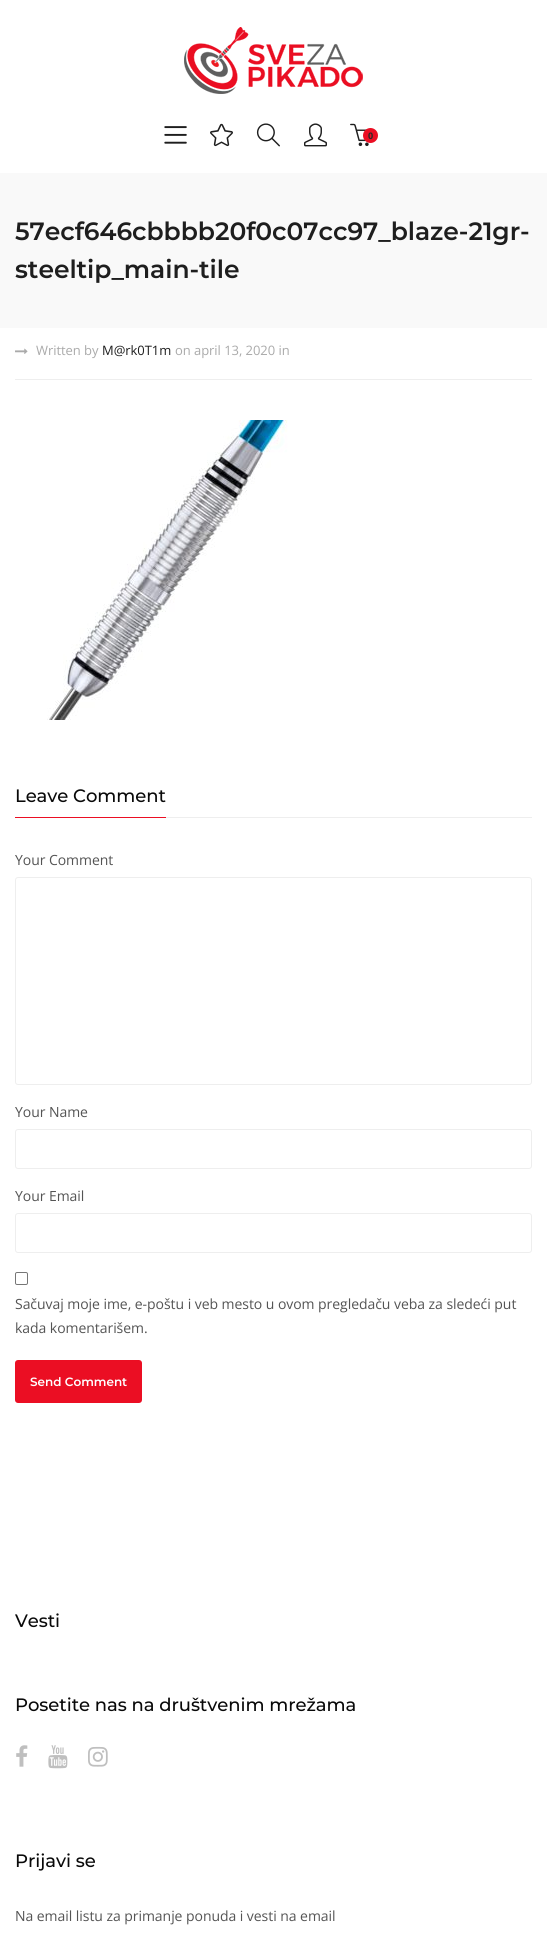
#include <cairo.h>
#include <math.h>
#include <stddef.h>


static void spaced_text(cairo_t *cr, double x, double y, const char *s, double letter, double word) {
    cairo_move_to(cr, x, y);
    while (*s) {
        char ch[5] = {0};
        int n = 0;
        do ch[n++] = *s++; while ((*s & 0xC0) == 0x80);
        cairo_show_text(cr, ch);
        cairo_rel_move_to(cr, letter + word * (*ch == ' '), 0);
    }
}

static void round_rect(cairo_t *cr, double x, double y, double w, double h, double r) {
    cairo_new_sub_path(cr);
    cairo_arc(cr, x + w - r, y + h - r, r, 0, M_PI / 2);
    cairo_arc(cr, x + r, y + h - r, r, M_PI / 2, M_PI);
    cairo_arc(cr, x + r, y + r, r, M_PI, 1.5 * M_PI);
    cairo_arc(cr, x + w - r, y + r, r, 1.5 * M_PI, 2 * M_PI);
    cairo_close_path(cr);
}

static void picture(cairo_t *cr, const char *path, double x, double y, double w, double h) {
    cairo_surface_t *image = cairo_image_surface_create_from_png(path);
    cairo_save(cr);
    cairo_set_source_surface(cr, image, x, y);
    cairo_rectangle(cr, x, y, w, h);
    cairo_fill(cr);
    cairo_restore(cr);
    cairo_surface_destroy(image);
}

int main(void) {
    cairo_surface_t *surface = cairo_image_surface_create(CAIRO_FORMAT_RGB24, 547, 1941);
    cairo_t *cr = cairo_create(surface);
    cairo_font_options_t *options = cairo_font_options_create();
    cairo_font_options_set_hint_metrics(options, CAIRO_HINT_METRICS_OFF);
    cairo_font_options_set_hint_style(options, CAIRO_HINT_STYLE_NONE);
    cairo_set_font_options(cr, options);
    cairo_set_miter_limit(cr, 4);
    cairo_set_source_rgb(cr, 1, 1, 1);
    cairo_paint(cr);
    picture(cr, "img1.png", 184, 27, 179, 67);
    picture(cr, "img2.png", 164, 126, 23, 18);
    picture(cr, "img3.png", 210, 123, 23, 24);
    picture(cr, "img4.png", 256, 123, 24, 24);
    picture(cr, "img5.png", 304, 123, 23, 24);
    picture(cr, "img6.png", 350, 123, 19, 24);
    cairo_set_source_rgb(cr, 0.918, 0.055, 0.137);
    cairo_arc(cr, 370.5, 135.5, 7.5, 0, 2 * M_PI);
    cairo_fill(cr);
    cairo_select_font_face(cr, "Open Sans", CAIRO_FONT_SLANT_NORMAL, CAIRO_FONT_WEIGHT_BOLD);
    cairo_set_font_size(cr, 9);
    cairo_set_source_rgb(cr, 0.157, 0.157, 0.157);
    spaced_text(cr, 368, 139, "0", -0.05, 0);
    cairo_set_source_rgb(cr, 0.973, 0.973, 0.973);
    cairo_rectangle(cr, 0, 173, 547, 155);
    cairo_fill(cr);
    cairo_select_font_face(cr, "Montserrat SemiBold", CAIRO_FONT_SLANT_NORMAL, CAIRO_FONT_WEIGHT_NORMAL);
    cairo_set_font_size(cr, 25);
    cairo_set_source_rgb(cr, 0.118, 0.118, 0.118);
    spaced_text(cr, 15, 240, "57ecf646cbbbb20f0c07cc97_blaze-21gr-", -0.05, 0);
    spaced_text(cr, 15, 278, "steeltip_main-tile", -0.05, 0);
    cairo_set_source_rgb(cr, 0.933, 0.933, 0.933);
    cairo_rectangle(cr, 15, 379, 517, 1);
    cairo_fill(cr);
    picture(cr, "img7.png", 15, 348, 13, 6);
    cairo_select_font_face(cr, "Open Sans", CAIRO_FONT_SLANT_NORMAL, CAIRO_FONT_WEIGHT_NORMAL);
    cairo_set_font_size(cr, 13);
    cairo_set_source_rgb(cr, 0.667, 0.667, 0.667);
    spaced_text(cr, 36, 355, "Written by", -0.05, 0);
    cairo_set_source_rgb(cr, 0.118, 0.118, 0.118);
    spaced_text(cr, 102, 355, "M@rk0T1m", -0.05, 0);
    cairo_set_source_rgb(cr, 0.667, 0.667, 0.667);
    spaced_text(cr, 175, 355, "on april 13, 2020 in", -0.05, 0);
    picture(cr, "img8.png", 47, 420, 241, 300);
    cairo_set_source_rgb(cr, 0.933, 0.933, 0.933);
    cairo_rectangle(cr, 166, 817, 366, 1);
    cairo_fill(cr);
    cairo_set_source_rgb(cr, 0.918, 0.055, 0.137);
    cairo_rectangle(cr, 15, 817, 151, 1);
    cairo_fill(cr);
    cairo_select_font_face(cr, "Montserrat Medium", CAIRO_FONT_SLANT_NORMAL, CAIRO_FONT_WEIGHT_NORMAL);
    cairo_set_font_size(cr, 18);
    cairo_set_source_rgb(cr, 0.039, 0.039, 0.039);
    spaced_text(cr, 15, 802, "Leave Comment", -0.05, 0);
    cairo_select_font_face(cr, "Open Sans", CAIRO_FONT_SLANT_NORMAL, CAIRO_FONT_WEIGHT_NORMAL);
    cairo_set_font_size(cr, 14);
    cairo_set_source_rgb(cr, 0.329, 0.329, 0.329);
    spaced_text(cr, 15, 865, "Your Comment", -0.05, 0);
    round_rect(cr, 15.5, 877.5, 516, 207, 2.5);
    cairo_set_source_rgb(cr, 0.933, 0.933, 0.933);
    cairo_set_line_width(cr, 1);
    cairo_stroke(cr);
    cairo_set_source_rgb(cr, 0.329, 0.329, 0.329);
    spaced_text(cr, 15, 1117, "Your Name", -0.05, 0);
    round_rect(cr, 15.5, 1129.5, 516, 39, 2.5);
    cairo_set_source_rgb(cr, 0.933, 0.933, 0.933);
    cairo_stroke(cr);
    cairo_set_source_rgb(cr, 0.329, 0.329, 0.329);
    spaced_text(cr, 15, 1201, "Your Email", -0.05, 0);
    round_rect(cr, 15.5, 1213.5, 516, 39, 2.5);
    cairo_set_source_rgb(cr, 0.933, 0.933, 0.933);
    cairo_stroke(cr);
    round_rect(cr, 15.5, 1272.5, 12, 12, 1.5);
    cairo_set_source_rgb(cr, 0.463, 0.463, 0.463);
    cairo_stroke(cr);
    cairo_set_source_rgb(cr, 0.329, 0.329, 0.329);
    spaced_text(cr, 15, 1309, "Sačuvaj moje ime, e-poštu i veb mesto u ovom pregledaču veba za sledeći put", -0.05, 0);
    spaced_text(cr, 15, 1333, "kada komentarišem.", -0.05, 0);
    cairo_set_source_rgb(cr, 0.918, 0.055, 0.137);
    round_rect(cr, 15, 1360, 127, 43, 3);
    cairo_fill(cr);
    cairo_select_font_face(cr, "Montserrat SemiBold", CAIRO_FONT_SLANT_NORMAL, CAIRO_FONT_WEIGHT_NORMAL);
    cairo_set_font_size(cr, 12);
    cairo_set_source_rgb(cr, 1, 1, 1);
    cairo_move_to(cr, 30, 1386);
    cairo_show_text(cr, "Send Comment");
    cairo_select_font_face(cr, "Montserrat Medium", CAIRO_FONT_SLANT_NORMAL, CAIRO_FONT_WEIGHT_NORMAL);
    cairo_set_font_size(cr, 18);
    cairo_set_source_rgb(cr, 0.039, 0.039, 0.039);
    spaced_text(cr, 15, 1627, "Vesti", -0.05, 0);
    spaced_text(cr, 15, 1711, "Posetite nas na društvenim mrežama", -0.05, 0);
    picture(cr, "img9.png", 16, 1745, 12, 22);
    picture(cr, "img10.png", 48, 1745, 20, 24);
    picture(cr, "img11.png", 88, 1746, 20, 21);
    spaced_text(cr, 15, 1867, "Prijavi se", -0.05, 0);
    cairo_select_font_face(cr, "Open Sans", CAIRO_FONT_SLANT_NORMAL, CAIRO_FONT_WEIGHT_NORMAL);
    cairo_set_font_size(cr, 14);
    cairo_set_source_rgb(cr, 0.329, 0.329, 0.329);
    spaced_text(cr, 15, 1921, "Na email listu za primanje ponuda i vesti na email", -0.05, 0);
    cairo_surface_write_to_png(surface, "page.png");
    cairo_font_options_destroy(options);
    cairo_destroy(cr);
    cairo_surface_destroy(surface);
    return 0;
}
